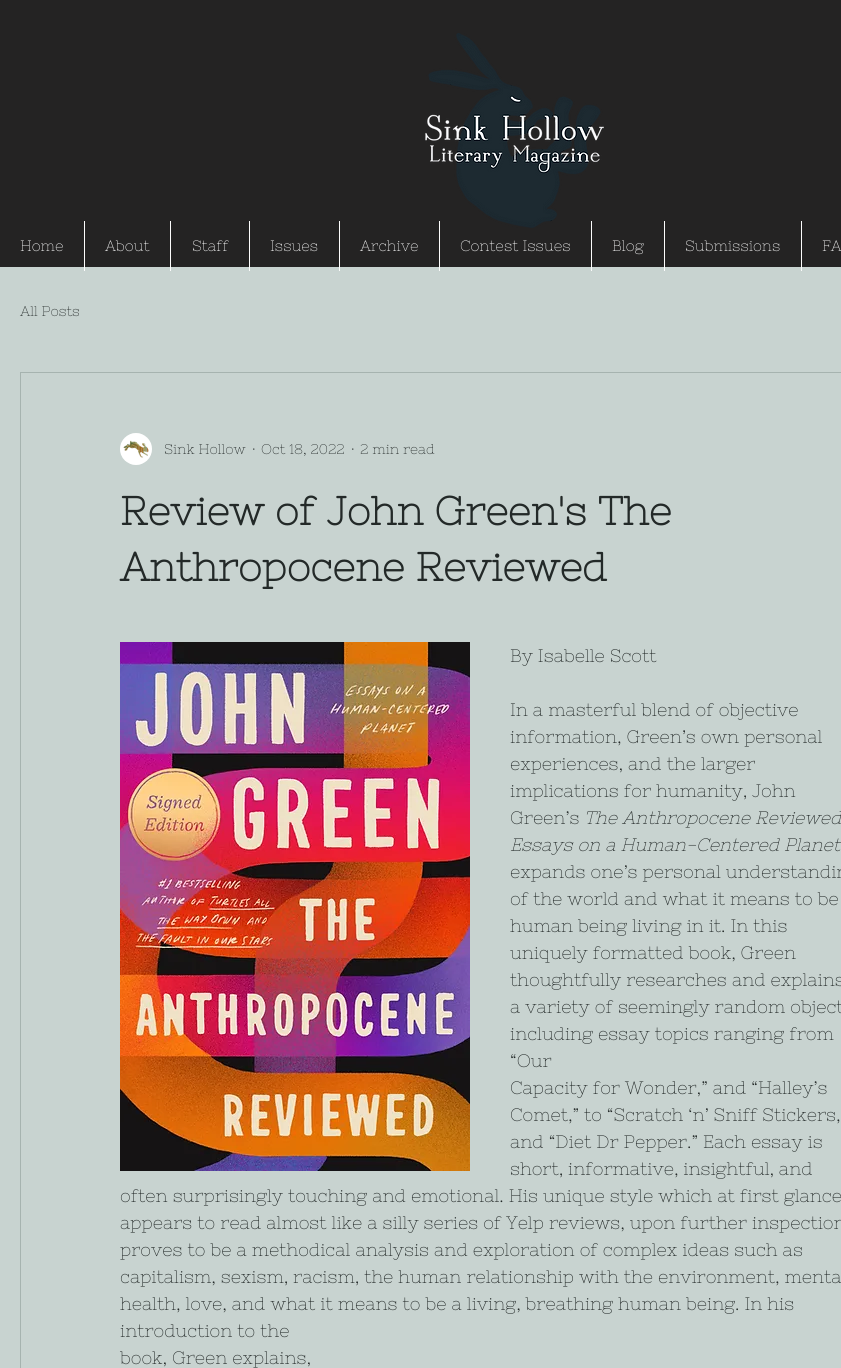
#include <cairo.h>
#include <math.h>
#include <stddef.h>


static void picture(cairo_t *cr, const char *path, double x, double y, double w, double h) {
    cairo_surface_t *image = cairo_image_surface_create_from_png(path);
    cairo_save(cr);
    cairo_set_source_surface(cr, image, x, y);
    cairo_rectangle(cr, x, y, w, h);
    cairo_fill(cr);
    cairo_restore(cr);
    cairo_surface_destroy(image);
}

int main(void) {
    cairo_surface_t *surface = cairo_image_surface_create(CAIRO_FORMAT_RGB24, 841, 1368);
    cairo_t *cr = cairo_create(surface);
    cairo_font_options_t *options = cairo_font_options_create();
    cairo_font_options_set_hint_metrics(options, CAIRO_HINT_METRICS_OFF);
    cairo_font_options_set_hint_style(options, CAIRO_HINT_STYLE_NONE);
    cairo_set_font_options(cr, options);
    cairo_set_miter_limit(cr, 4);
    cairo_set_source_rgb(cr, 0.784, 0.827, 0.816);
    cairo_paint(cr);
    cairo_set_source_rgb(cr, 0.141, 0.137, 0.137);
    cairo_rectangle(cr, 0, 0, 841, 267);
    cairo_fill(cr);
    picture(cr, "img1.png", 425, 33, 179, 195);
    cairo_select_font_face(cr, "Nixie One", CAIRO_FONT_SLANT_NORMAL, CAIRO_FONT_WEIGHT_NORMAL);
    cairo_set_font_size(cr, 15);
    cairo_set_source_rgb(cr, 0.988, 0.988, 0.988);
    cairo_move_to(cr, 20, 251);
    cairo_show_text(cr, "Home");
    cairo_rectangle(cr, 84, 221, 1, 50);
    cairo_fill(cr);
    cairo_move_to(cr, 105, 251);
    cairo_show_text(cr, "About");
    cairo_rectangle(cr, 170, 221, 1, 50);
    cairo_fill(cr);
    cairo_move_to(cr, 192, 251);
    cairo_show_text(cr, "Staff");
    cairo_rectangle(cr, 249, 221, 1, 50);
    cairo_fill(cr);
    cairo_move_to(cr, 270, 251);
    cairo_show_text(cr, "Issues");
    cairo_rectangle(cr, 339, 221, 1, 50);
    cairo_fill(cr);
    cairo_move_to(cr, 360, 251);
    cairo_show_text(cr, "Archive");
    cairo_rectangle(cr, 439, 221, 1, 50);
    cairo_fill(cr);
    cairo_move_to(cr, 460, 251);
    cairo_show_text(cr, "Contest Issues");
    cairo_rectangle(cr, 591, 221, 1, 50);
    cairo_fill(cr);
    cairo_move_to(cr, 612, 251);
    cairo_show_text(cr, "Blog");
    cairo_rectangle(cr, 664, 221, 1, 50);
    cairo_fill(cr);
    cairo_move_to(cr, 685, 251);
    cairo_show_text(cr, "Submissions");
    cairo_rectangle(cr, 801, 221, 1, 50);
    cairo_fill(cr);
    cairo_move_to(cr, 822, 251);
    cairo_show_text(cr, "FA");
    cairo_set_font_size(cr, 14);
    cairo_set_source_rgb(cr, 0.137, 0.161, 0.157);
    cairo_move_to(cr, 20, 316);
    cairo_show_text(cr, "All Posts");
    cairo_rectangle(cr, 20.5, 372.5, 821, 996);
    cairo_set_source_rgb(cr, 0.651, 0.702, 0.686);
    cairo_set_line_width(cr, 1);
    cairo_stroke(cr);
    picture(cr, "img2.png", 120, 433, 32, 32);
    cairo_set_source_rgb(cr, 0.137, 0.161, 0.157);
    cairo_move_to(cr, 164, 454);
    cairo_show_text(cr, "Sink Hollow");
    cairo_move_to(cr, 252, 454);
    cairo_show_text(cr, "·");
    cairo_move_to(cr, 261, 454);
    cairo_show_text(cr, "Oct 18, 2022");
    cairo_move_to(cr, 351, 454);
    cairo_show_text(cr, "·");
    cairo_move_to(cr, 360, 454);
    cairo_show_text(cr, "2 min read");
    cairo_select_font_face(cr, "Nixie One", CAIRO_FONT_SLANT_NORMAL, CAIRO_FONT_WEIGHT_BOLD);
    cairo_set_font_size(cr, 40);
    cairo_move_to(cr, 120, 525);
    cairo_show_text(cr, "Review of John Green's The");
    cairo_move_to(cr, 120, 581);
    cairo_show_text(cr, "Anthropocene Reviewed");
    picture(cr, "img3.png", 120, 642, 350, 529);
    cairo_select_font_face(cr, "Nixie One", CAIRO_FONT_SLANT_NORMAL, CAIRO_FONT_WEIGHT_NORMAL);
    cairo_set_font_size(cr, 18);
    cairo_move_to(cr, 510, 662);
    cairo_show_text(cr, "By Isabelle Scott");
    cairo_move_to(cr, 510, 716);
    cairo_show_text(cr, "In a masterful blend of objective");
    cairo_move_to(cr, 510, 743);
    cairo_show_text(cr, "information, Green’s own personal");
    cairo_move_to(cr, 510, 770);
    cairo_show_text(cr, "experiences, and the larger");
    cairo_move_to(cr, 510, 797);
    cairo_show_text(cr, "implications for humanity, John");
    cairo_move_to(cr, 510, 824);
    cairo_show_text(cr, "Green’s");
    cairo_select_font_face(cr, "Nixie One", CAIRO_FONT_SLANT_ITALIC, CAIRO_FONT_WEIGHT_NORMAL);
    cairo_move_to(cr, 584, 824);
    cairo_show_text(cr, "The Anthropocene Reviewed");
    cairo_move_to(cr, 510, 851);
    cairo_show_text(cr, "Essays on a Human-Centered Planet");
    cairo_select_font_face(cr, "Nixie One", CAIRO_FONT_SLANT_NORMAL, CAIRO_FONT_WEIGHT_NORMAL);
    cairo_move_to(cr, 510, 878);
    cairo_show_text(cr, "expands one’s personal understandin");
    cairo_move_to(cr, 510, 905);
    cairo_show_text(cr, "of the world and what it means to be");
    cairo_move_to(cr, 510, 932);
    cairo_show_text(cr, "human being living in it. In this");
    cairo_move_to(cr, 510, 959);
    cairo_show_text(cr, "uniquely formatted book, Green");
    cairo_move_to(cr, 510, 986);
    cairo_show_text(cr, "thoughtfully researches and explains");
    cairo_move_to(cr, 510, 1013);
    cairo_show_text(cr, "a variety of seemingly random object");
    cairo_move_to(cr, 510, 1040);
    cairo_show_text(cr, "including essay topics ranging from");
    cairo_move_to(cr, 510, 1067);
    cairo_show_text(cr, "“Our");
    cairo_move_to(cr, 510, 1094);
    cairo_show_text(cr, "Capacity for Wonder,” and “Halley’s");
    cairo_move_to(cr, 510, 1121);
    cairo_show_text(cr, "Comet,” to “Scratch ‘n’ Sniff Stickers,");
    cairo_move_to(cr, 510, 1148);
    cairo_show_text(cr, "and “Diet Dr Pepper.” Each essay is");
    cairo_move_to(cr, 510, 1175);
    cairo_show_text(cr, "short, informative, insightful, and");
    cairo_move_to(cr, 120, 1202);
    cairo_show_text(cr, "often surprisingly touching and emotional. His unique style which at first glance");
    cairo_move_to(cr, 120, 1229);
    cairo_show_text(cr, "appears to read almost like a silly series of Yelp reviews, upon further inspection");
    cairo_move_to(cr, 120, 1256);
    cairo_show_text(cr, "proves to be a methodical analysis and exploration of complex ideas such as");
    cairo_move_to(cr, 120, 1283);
    cairo_show_text(cr, "capitalism, sexism, racism, the human relationship with the environment, menta");
    cairo_move_to(cr, 120, 1310);
    cairo_show_text(cr, "health, love, and what it means to be a living, breathing human being. In his");
    cairo_move_to(cr, 120, 1337);
    cairo_show_text(cr, "introduction to the");
    cairo_move_to(cr, 120, 1364);
    cairo_show_text(cr, "book, Green explains,");
    cairo_surface_write_to_png(surface, "page.png");
    cairo_font_options_destroy(options);
    cairo_destroy(cr);
    cairo_surface_destroy(surface);
    return 0;
}
